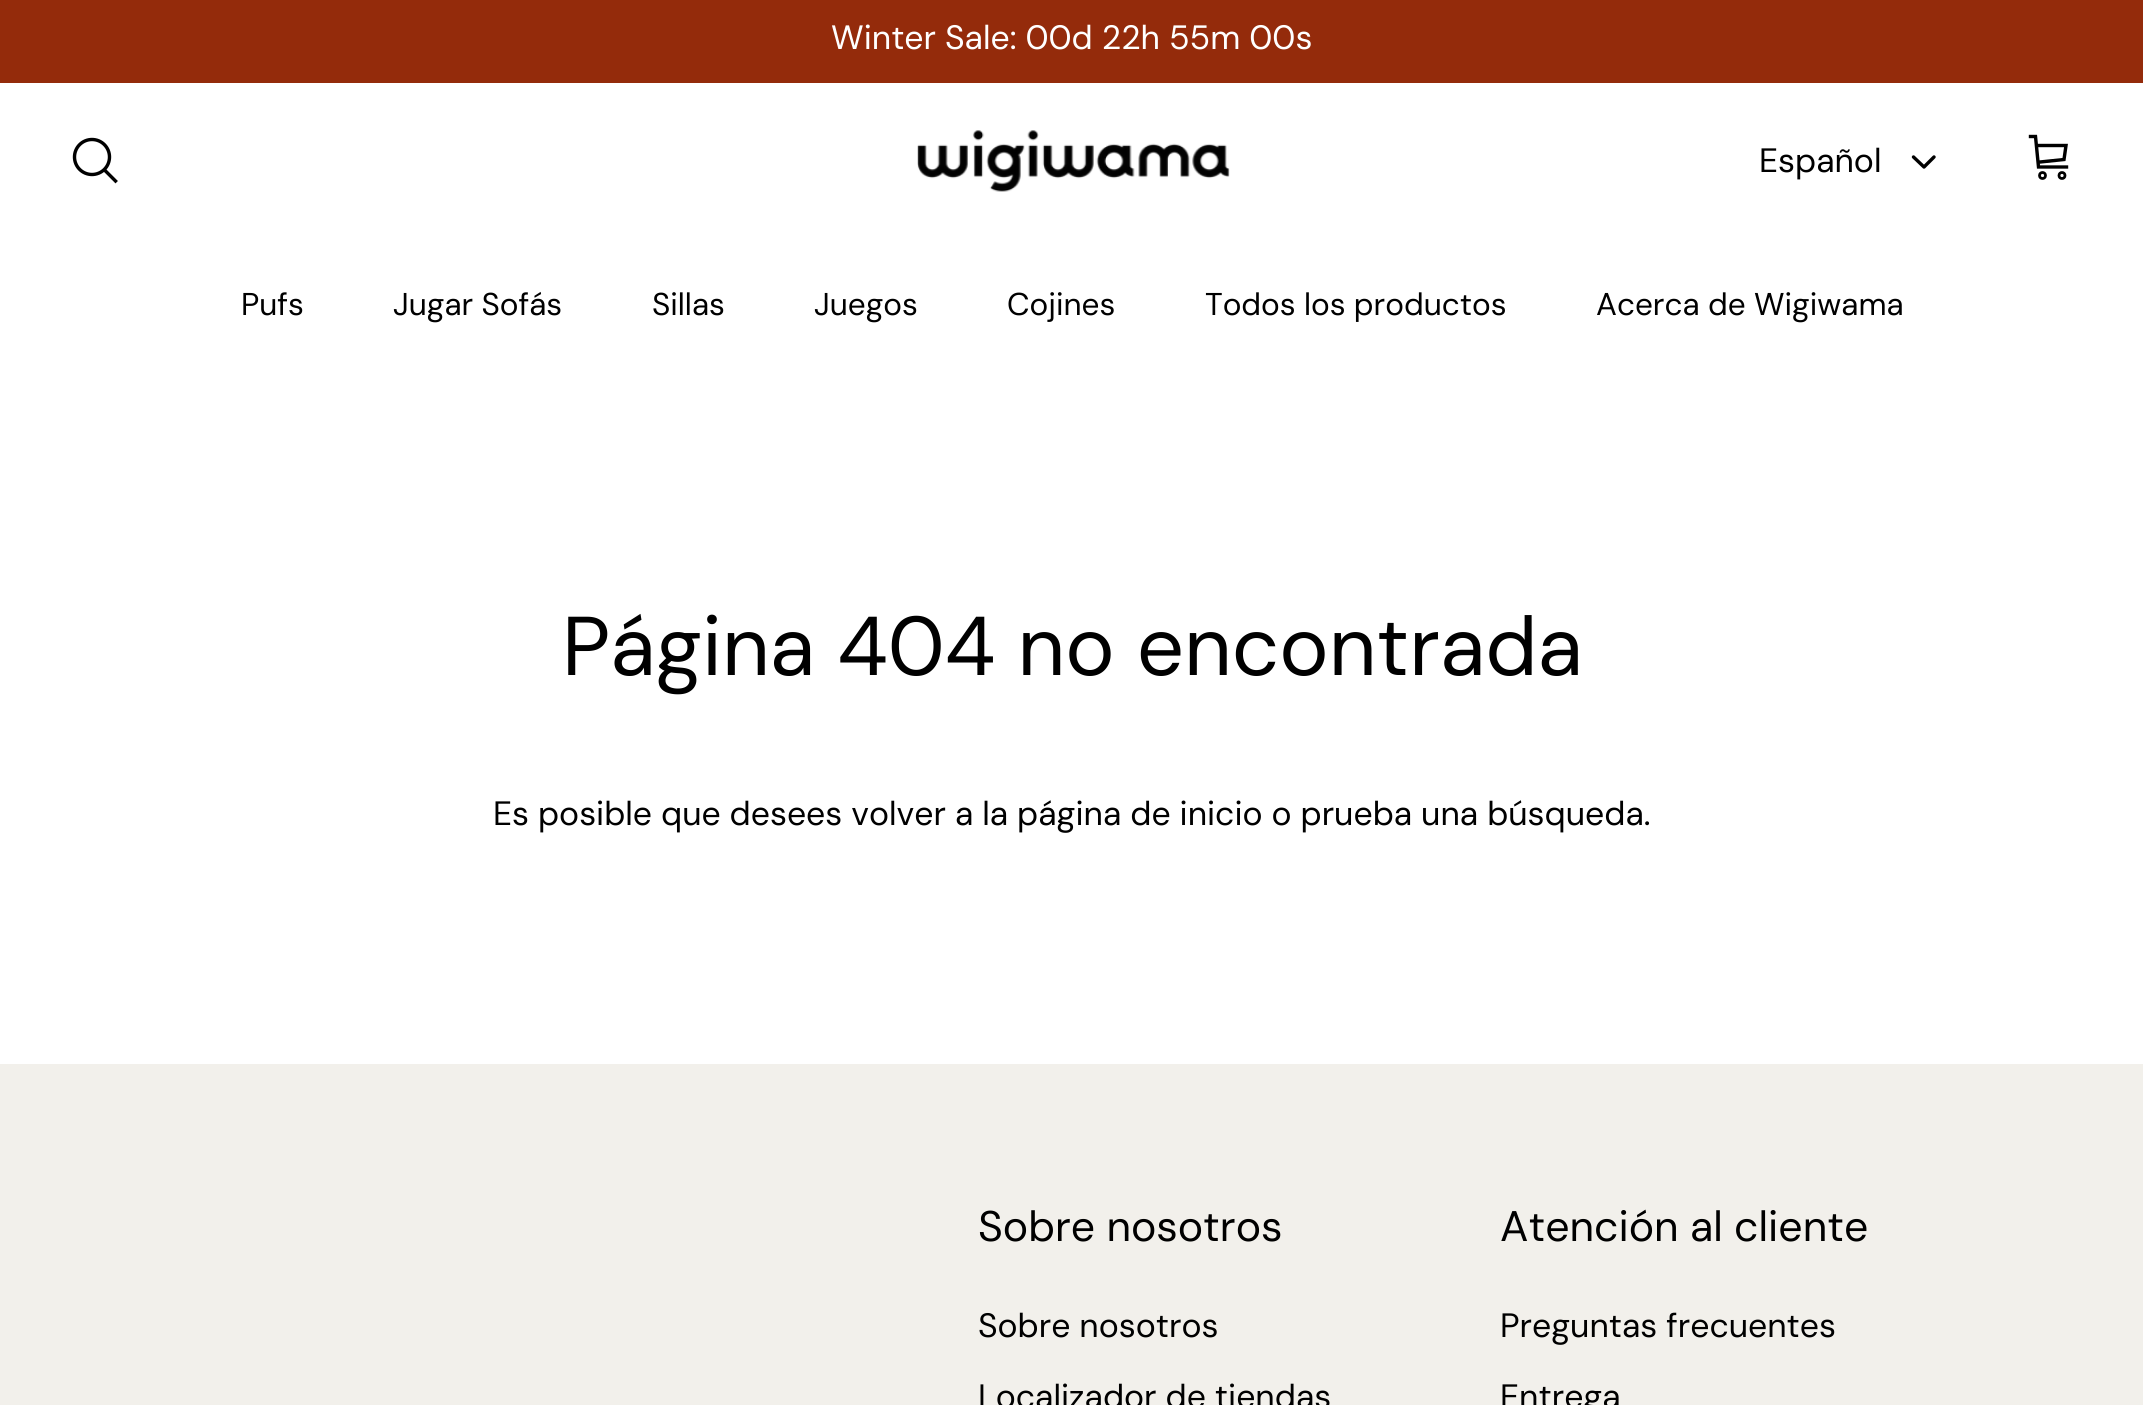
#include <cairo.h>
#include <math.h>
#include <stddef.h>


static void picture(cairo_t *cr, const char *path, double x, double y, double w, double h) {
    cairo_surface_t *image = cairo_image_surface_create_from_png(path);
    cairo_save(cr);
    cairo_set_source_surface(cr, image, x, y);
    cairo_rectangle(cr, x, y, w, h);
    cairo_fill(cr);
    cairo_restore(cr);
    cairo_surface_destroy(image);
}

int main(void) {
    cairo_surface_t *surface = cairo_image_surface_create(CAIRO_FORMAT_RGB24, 2143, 1405);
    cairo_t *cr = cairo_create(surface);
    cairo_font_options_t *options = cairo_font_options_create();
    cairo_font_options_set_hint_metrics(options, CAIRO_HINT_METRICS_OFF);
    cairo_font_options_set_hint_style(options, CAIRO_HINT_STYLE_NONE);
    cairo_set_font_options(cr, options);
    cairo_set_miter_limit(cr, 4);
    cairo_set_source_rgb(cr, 1, 1, 1);
    cairo_paint(cr);
    cairo_set_source_rgb(cr, 0.58, 0.169, 0.043);
    cairo_rectangle(cr, 0, 0, 2143, 83);
    cairo_fill(cr);
    cairo_select_font_face(cr, "DM Sans", CAIRO_FONT_SLANT_NORMAL, CAIRO_FONT_WEIGHT_NORMAL);
    cairo_set_font_size(cr, 33.75);
    cairo_set_source_rgb(cr, 1, 1, 1);
    cairo_move_to(cr, 831, 49);
    cairo_show_text(cr, "Winter Sale: 00d 22h 55m 00s");
    cairo_new_path(cr);
    cairo_arc(cr, 92, 157, 17.5, 0, 2 * M_PI);
    cairo_set_source_rgb(cr, 0, 0, 0);
    cairo_set_line_width(cr, 3.4);
    cairo_stroke(cr);
    cairo_new_path(cr);
    cairo_move_to(cr, 105.5, 171);
    cairo_line_to(cr, 115.5, 181);
    cairo_set_line_cap(cr, CAIRO_LINE_CAP_SQUARE);
    cairo_stroke(cr);
    picture(cr, "img1.png", 917, 130, 313, 62);
    cairo_move_to(cr, 1759, 172);
    cairo_show_text(cr, "Español");
    cairo_new_path(cr);
    cairo_move_to(cr, 1913.5, 157);
    cairo_line_to(cr, 1924, 167);
    cairo_line_to(cr, 1934, 157);
    cairo_set_line_cap(cr, CAIRO_LINE_CAP_ROUND);
    cairo_set_line_join(cr, CAIRO_LINE_JOIN_ROUND);
    cairo_stroke(cr);
    cairo_new_path(cr);
    cairo_move_to(cr, 2030.5, 136.5);
    cairo_line_to(cr, 2035.5, 136.5);
    cairo_line_to(cr, 2038.5, 167);
    cairo_line_to(cr, 2066.5, 167);
    cairo_move_to(cr, 2037, 145.5);
    cairo_line_to(cr, 2066, 145.5);
    cairo_line_to(cr, 2064, 159.5);
    cairo_line_to(cr, 2040, 162);
    cairo_set_line_cap(cr, CAIRO_LINE_CAP_SQUARE);
    cairo_set_line_join(cr, CAIRO_LINE_JOIN_MITER);
    cairo_stroke(cr);
    cairo_arc(cr, 2042.5, 175.5, 3, 0, 2 * M_PI);
    cairo_set_line_width(cr, 2.8);
    cairo_set_line_cap(cr, CAIRO_LINE_CAP_BUTT);
    cairo_stroke(cr);
    cairo_arc(cr, 2062, 175.5, 3, 0, 2 * M_PI);
    cairo_stroke(cr);
    cairo_set_font_size(cr, 31.5);
    cairo_move_to(cr, 241, 315);
    cairo_show_text(cr, "Pufs");
    cairo_move_to(cr, 393, 315);
    cairo_show_text(cr, "Jugar Sofás");
    cairo_move_to(cr, 652, 315);
    cairo_show_text(cr, "Sillas");
    cairo_move_to(cr, 814, 315);
    cairo_show_text(cr, "Juegos");
    cairo_move_to(cr, 1007, 315);
    cairo_show_text(cr, "Cojines");
    cairo_move_to(cr, 1205, 315);
    cairo_show_text(cr, "Todos los productos");
    cairo_move_to(cr, 1596, 315);
    cairo_show_text(cr, "Acerca de Wigiwama");
    cairo_set_font_size(cr, 83.25);
    cairo_move_to(cr, 562, 675);
    cairo_show_text(cr, "Página 404 no encontrada");
    cairo_set_font_size(cr, 33.75);
    cairo_move_to(cr, 493, 825);
    cairo_show_text(cr, "Es posible que desees volver a la página de inicio o prueba una búsqueda.");
    cairo_set_source_rgb(cr, 0.949, 0.941, 0.918);
    cairo_rectangle(cr, 0, 1064, 2143, 341);
    cairo_fill(cr);
    cairo_set_font_size(cr, 42.75);
    cairo_set_source_rgb(cr, 0, 0, 0);
    cairo_move_to(cr, 978, 1241);
    cairo_show_text(cr, "Sobre nosotros");
    cairo_set_font_size(cr, 33.75);
    cairo_move_to(cr, 978, 1337);
    cairo_show_text(cr, "Sobre nosotros");
    cairo_move_to(cr, 978, 1408);
    cairo_show_text(cr, "Localizador de tiendas");
    cairo_set_font_size(cr, 42.75);
    cairo_move_to(cr, 1500, 1241);
    cairo_show_text(cr, "Atención al cliente");
    cairo_set_font_size(cr, 33.75);
    cairo_move_to(cr, 1500, 1337);
    cairo_show_text(cr, "Preguntas frecuentes");
    cairo_move_to(cr, 1500, 1408);
    cairo_show_text(cr, "Entrega");
    cairo_surface_write_to_png(surface, "page.png");
    cairo_font_options_destroy(options);
    cairo_destroy(cr);
    cairo_surface_destroy(surface);
    return 0;
}
